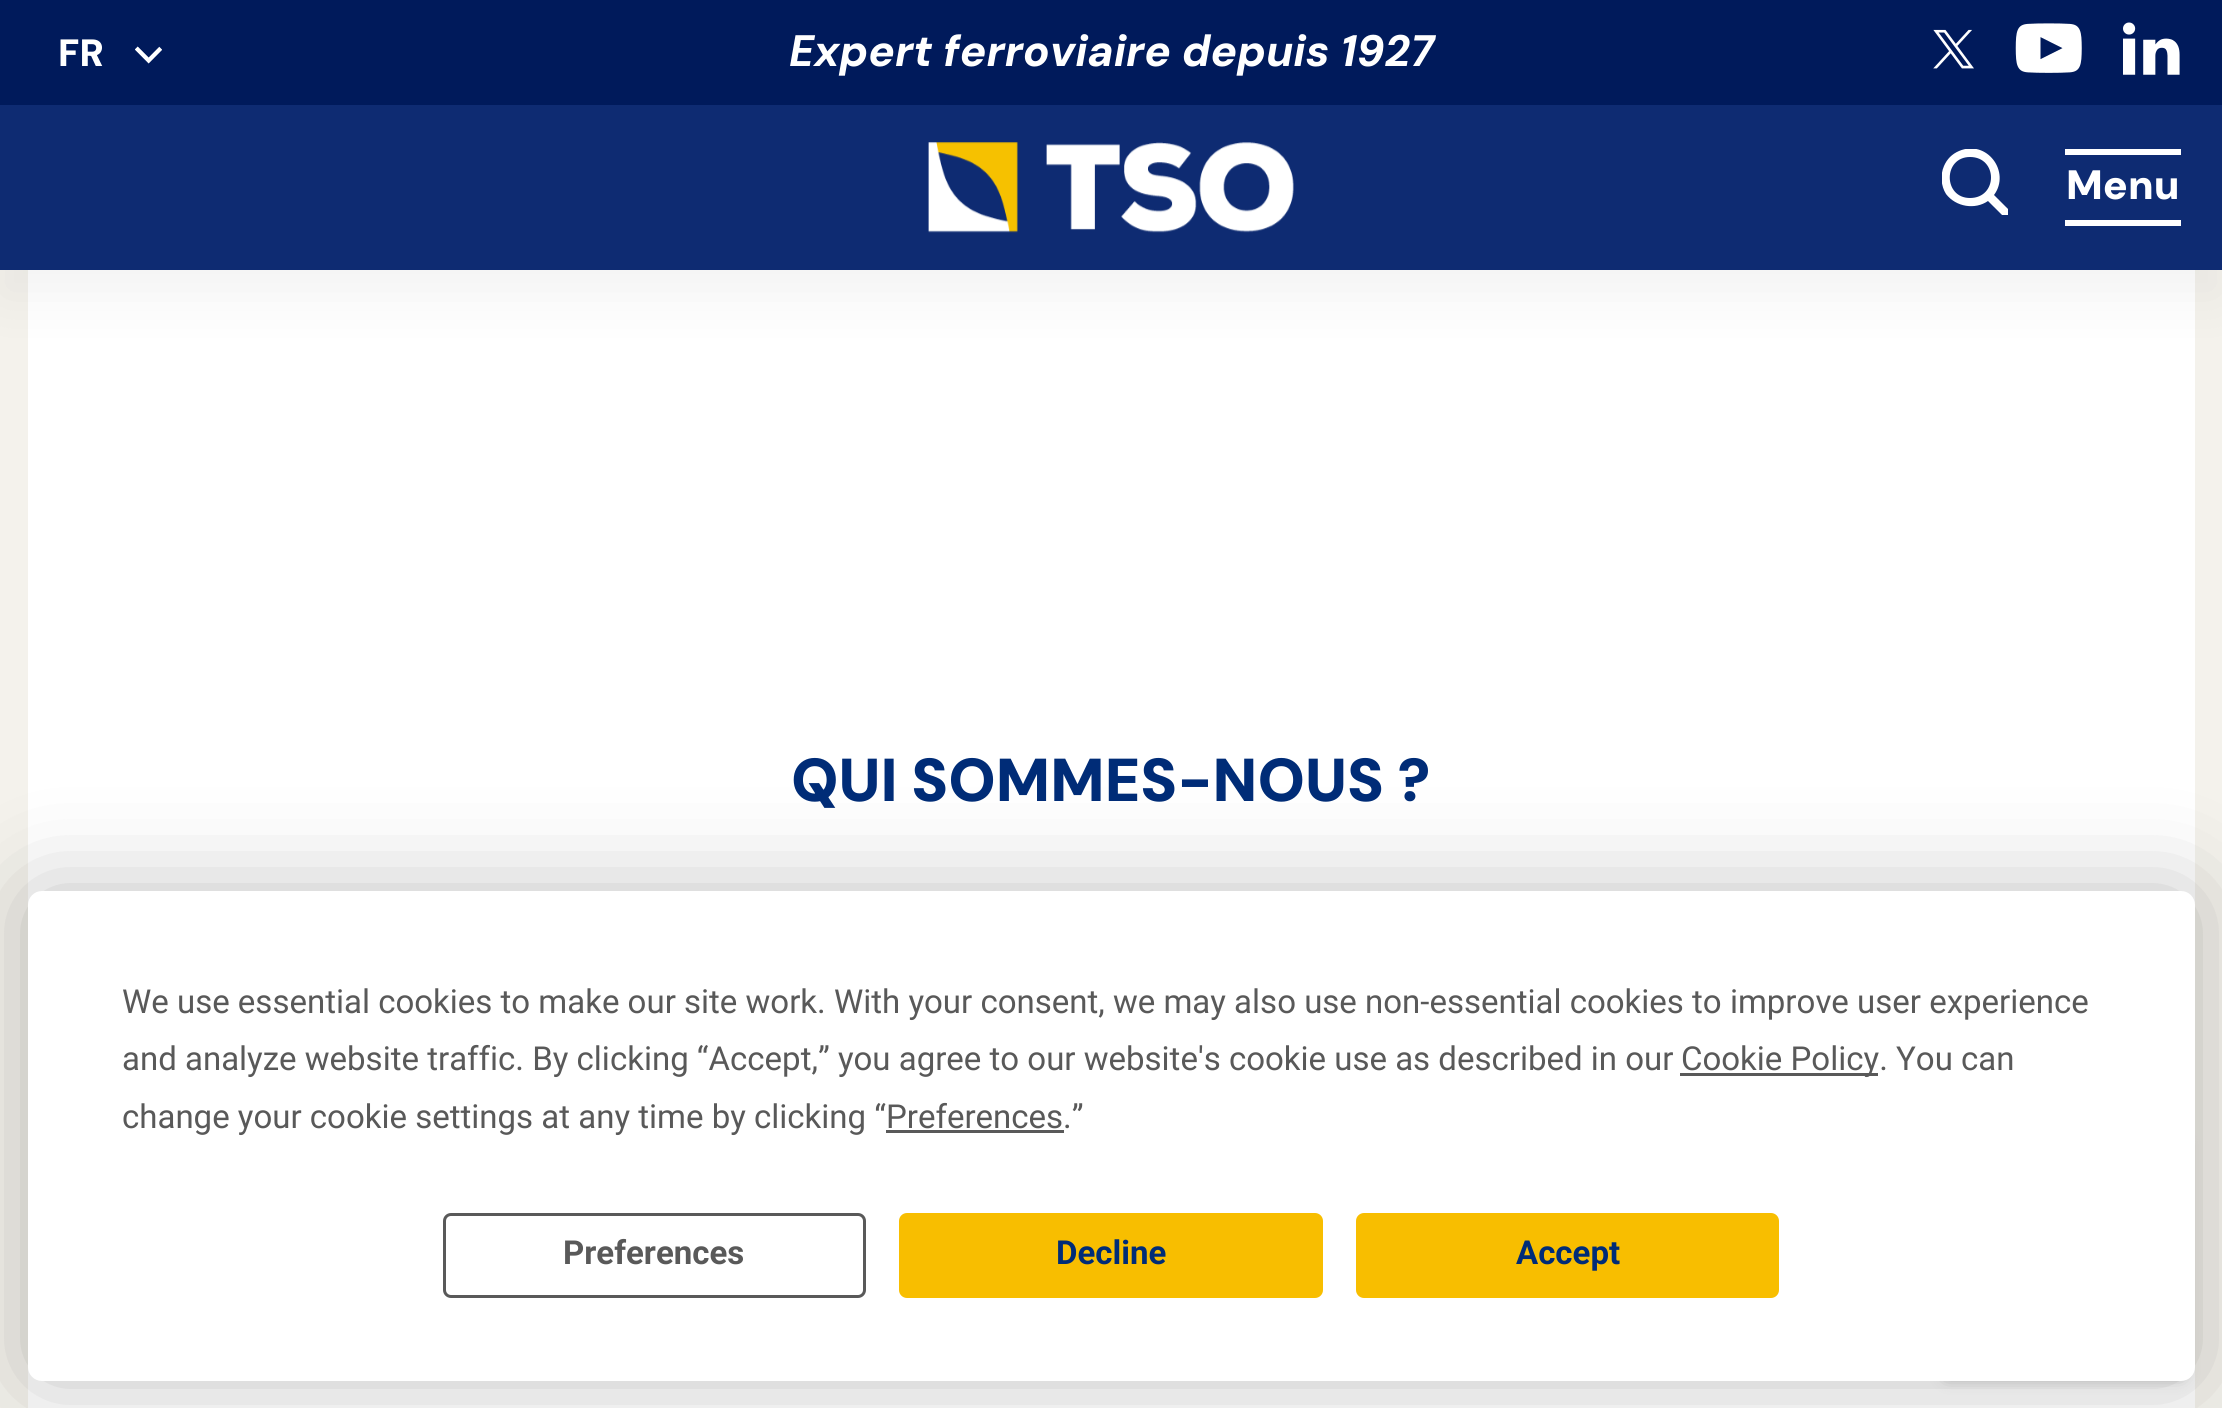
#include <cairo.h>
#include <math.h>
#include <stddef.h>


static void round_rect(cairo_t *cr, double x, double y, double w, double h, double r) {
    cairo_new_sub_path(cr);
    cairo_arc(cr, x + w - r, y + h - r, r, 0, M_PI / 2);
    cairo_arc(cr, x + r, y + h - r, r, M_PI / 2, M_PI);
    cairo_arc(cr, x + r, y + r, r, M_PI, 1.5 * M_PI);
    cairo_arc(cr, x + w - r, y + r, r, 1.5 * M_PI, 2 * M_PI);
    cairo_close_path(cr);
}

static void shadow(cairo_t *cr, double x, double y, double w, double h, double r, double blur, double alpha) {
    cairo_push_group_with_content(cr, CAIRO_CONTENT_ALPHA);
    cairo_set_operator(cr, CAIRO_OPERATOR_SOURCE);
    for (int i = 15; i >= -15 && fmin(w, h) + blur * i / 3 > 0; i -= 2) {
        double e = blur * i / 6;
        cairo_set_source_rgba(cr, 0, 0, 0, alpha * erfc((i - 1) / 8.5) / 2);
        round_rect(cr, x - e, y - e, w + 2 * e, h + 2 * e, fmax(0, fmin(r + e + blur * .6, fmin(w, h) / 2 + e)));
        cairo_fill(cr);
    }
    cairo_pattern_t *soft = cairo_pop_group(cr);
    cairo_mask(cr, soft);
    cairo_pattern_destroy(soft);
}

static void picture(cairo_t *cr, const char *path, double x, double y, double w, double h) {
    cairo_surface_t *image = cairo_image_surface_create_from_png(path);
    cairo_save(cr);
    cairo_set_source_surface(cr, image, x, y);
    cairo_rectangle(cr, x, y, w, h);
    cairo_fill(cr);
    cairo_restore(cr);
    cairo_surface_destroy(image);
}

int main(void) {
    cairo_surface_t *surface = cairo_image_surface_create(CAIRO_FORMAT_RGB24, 2222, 1408);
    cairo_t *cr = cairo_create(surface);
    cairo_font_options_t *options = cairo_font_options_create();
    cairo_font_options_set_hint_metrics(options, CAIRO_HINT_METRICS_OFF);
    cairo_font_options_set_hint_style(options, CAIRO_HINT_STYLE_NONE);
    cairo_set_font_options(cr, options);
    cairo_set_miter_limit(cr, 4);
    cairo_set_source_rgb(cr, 0.957, 0.949, 0.925);
    cairo_paint(cr);
    cairo_set_source_rgb(cr, 1, 1, 1);
    cairo_rectangle(cr, 28, 270, 2167, 1138);
    cairo_fill(cr);
    cairo_set_source_rgb(cr, 0, 0, 0);
    shadow(cr, 0, 132, 2222, 165, 0, 27.5, 0.05);
    cairo_set_source_rgb(cr, 0, 0.102, 0.357);
    cairo_rectangle(cr, 0, 0, 2222, 105);
    cairo_fill(cr);
    cairo_select_font_face(cr, "DM Sans Black", CAIRO_FONT_SLANT_NORMAL, CAIRO_FONT_WEIGHT_NORMAL);
    cairo_set_font_size(cr, 38);
    cairo_set_source_rgb(cr, 1, 1, 1);
    cairo_move_to(cr, 58, 66);
    cairo_show_text(cr, "FR");
    picture(cr, "img1.png", 135, 46, 27, 18);
    cairo_select_font_face(cr, "DM Sans ExtraBold", CAIRO_FONT_SLANT_ITALIC, CAIRO_FONT_WEIGHT_NORMAL);
    cairo_set_font_size(cr, 44);
    cairo_move_to(cr, 789, 66);
    cairo_show_text(cr, "Expert ferroviaire depuis 1927");
    picture(cr, "img2.png", 1933, 29, 41, 40);
    picture(cr, "img3.png", 2015, 23, 67, 50);
    picture(cr, "img4.png", 2123, 22, 57, 53);
    cairo_set_source_rgb(cr, 0.055, 0.169, 0.447);
    cairo_rectangle(cr, 0, 105, 2222, 165);
    cairo_fill(cr);
    picture(cr, "img5.png", 928, 142, 366, 91);
    cairo_save(cr);
    cairo_rectangle(cr, 1942, 149, 66, 66);
    cairo_clip(cr);
    cairo_set_source_rgb(cr, 1, 1, 1);
    cairo_set_fill_rule(cr, CAIRO_FILL_RULE_EVEN_ODD);
    cairo_new_path(cr);
    cairo_move_to(cr, 1994, 195);
    cairo_line_to(cr, 2016, 217);
    cairo_line_to(cr, 2010, 223);
    cairo_line_to(cr, 1988, 201);
    cairo_curve_to(cr, 1975, 210, 1956, 207, 1946, 194);
    cairo_curve_to(cr, 1941, 186, 1940, 175, 1944, 166);
    cairo_curve_to(cr, 1947, 159, 1952, 154, 1959, 151);
    cairo_curve_to(cr, 1987, 139, 2011, 172, 1994, 195);
    cairo_close_path(cr);
    cairo_move_to(cr, 1970, 198);
    cairo_curve_to(cr, 1998, 198, 1998, 157, 1970, 157);
    cairo_curve_to(cr, 1943, 157, 1943, 198, 1970, 198);
    cairo_close_path(cr);
    cairo_fill(cr);
    cairo_restore(cr);
    cairo_set_source_rgb(cr, 1, 1, 1);
    cairo_rectangle(cr, 2065, 149, 116, 6);
    cairo_fill(cr);
    cairo_select_font_face(cr, "DM Sans Black", CAIRO_FONT_SLANT_NORMAL, CAIRO_FONT_WEIGHT_NORMAL);
    cairo_set_font_size(cr, 41);
    cairo_move_to(cr, 2066, 199);
    cairo_show_text(cr, "Menu");
    cairo_rectangle(cr, 2065, 220, 116, 6);
    cairo_fill(cr);
    cairo_set_font_size(cr, 60.5);
    cairo_set_source_rgb(cr, 0, 0.173, 0.467);
    cairo_move_to(cr, 791, 801);
    cairo_show_text(cr, "QUI SOMMES-NOUS ?");
    cairo_set_source_rgb(cr, 0, 0, 0);
    shadow(cr, 1947, 1141, 234, 234, 0, 8, 0.4);
    shadow(cr, 28, 891, 2167, 490, 14, 48, 0.25);
    cairo_set_source_rgb(cr, 1, 1, 1);
    round_rect(cr, 28, 891, 2167, 490, 14);
    cairo_fill(cr);
    cairo_select_font_face(cr, "Roboto", CAIRO_FONT_SLANT_NORMAL, CAIRO_FONT_WEIGHT_NORMAL);
    cairo_set_font_size(cr, 33);
    cairo_set_source_rgb(cr, 0.349, 0.349, 0.349);
    cairo_move_to(cr, 122, 1013);
    cairo_show_text(cr, "We use essential cookies to make our site work. With your consent, we may also use non-essential cookies to improve user experience");
    cairo_move_to(cr, 122, 1070);
    cairo_show_text(cr, "and analyze website traffic. By clicking “Accept,” you agree to our website's cookie use as described in our");
    cairo_rectangle(cr, 1680, 1073, 198, 3);
    cairo_fill(cr);
    cairo_move_to(cr, 1681, 1070);
    cairo_show_text(cr, "Cookie Policy. You can");
    cairo_move_to(cr, 122, 1128);
    cairo_show_text(cr, "change your cookie settings at any time by clicking “Preferences.”");
    cairo_rectangle(cr, 886, 1130, 178, 3);
    cairo_fill(cr);
    round_rect(cr, 444.5, 1214.5, 420, 82, 6.5);
    cairo_set_line_width(cr, 3);
    cairo_stroke(cr);
    cairo_select_font_face(cr, "Roboto", CAIRO_FONT_SLANT_NORMAL, CAIRO_FONT_WEIGHT_BOLD);
    cairo_move_to(cr, 563, 1264);
    cairo_show_text(cr, "Preferences");
    cairo_set_source_rgb(cr, 0.969, 0.745, 0);
    round_rect(cr, 900.5, 1214.5, 421, 82, 6.5);
    cairo_fill_preserve(cr);
    cairo_stroke(cr);
    cairo_set_source_rgb(cr, 0, 0.173, 0.467);
    cairo_move_to(cr, 1056, 1264);
    cairo_show_text(cr, "Decline");
    cairo_set_source_rgb(cr, 0.969, 0.745, 0);
    round_rect(cr, 1357.5, 1214.5, 420, 82, 6.5);
    cairo_fill_preserve(cr);
    cairo_stroke(cr);
    cairo_set_source_rgb(cr, 0, 0.173, 0.467);
    cairo_move_to(cr, 1516, 1264);
    cairo_show_text(cr, "Accept");
    cairo_surface_write_to_png(surface, "page.png");
    cairo_font_options_destroy(options);
    cairo_destroy(cr);
    cairo_surface_destroy(surface);
    return 0;
}
